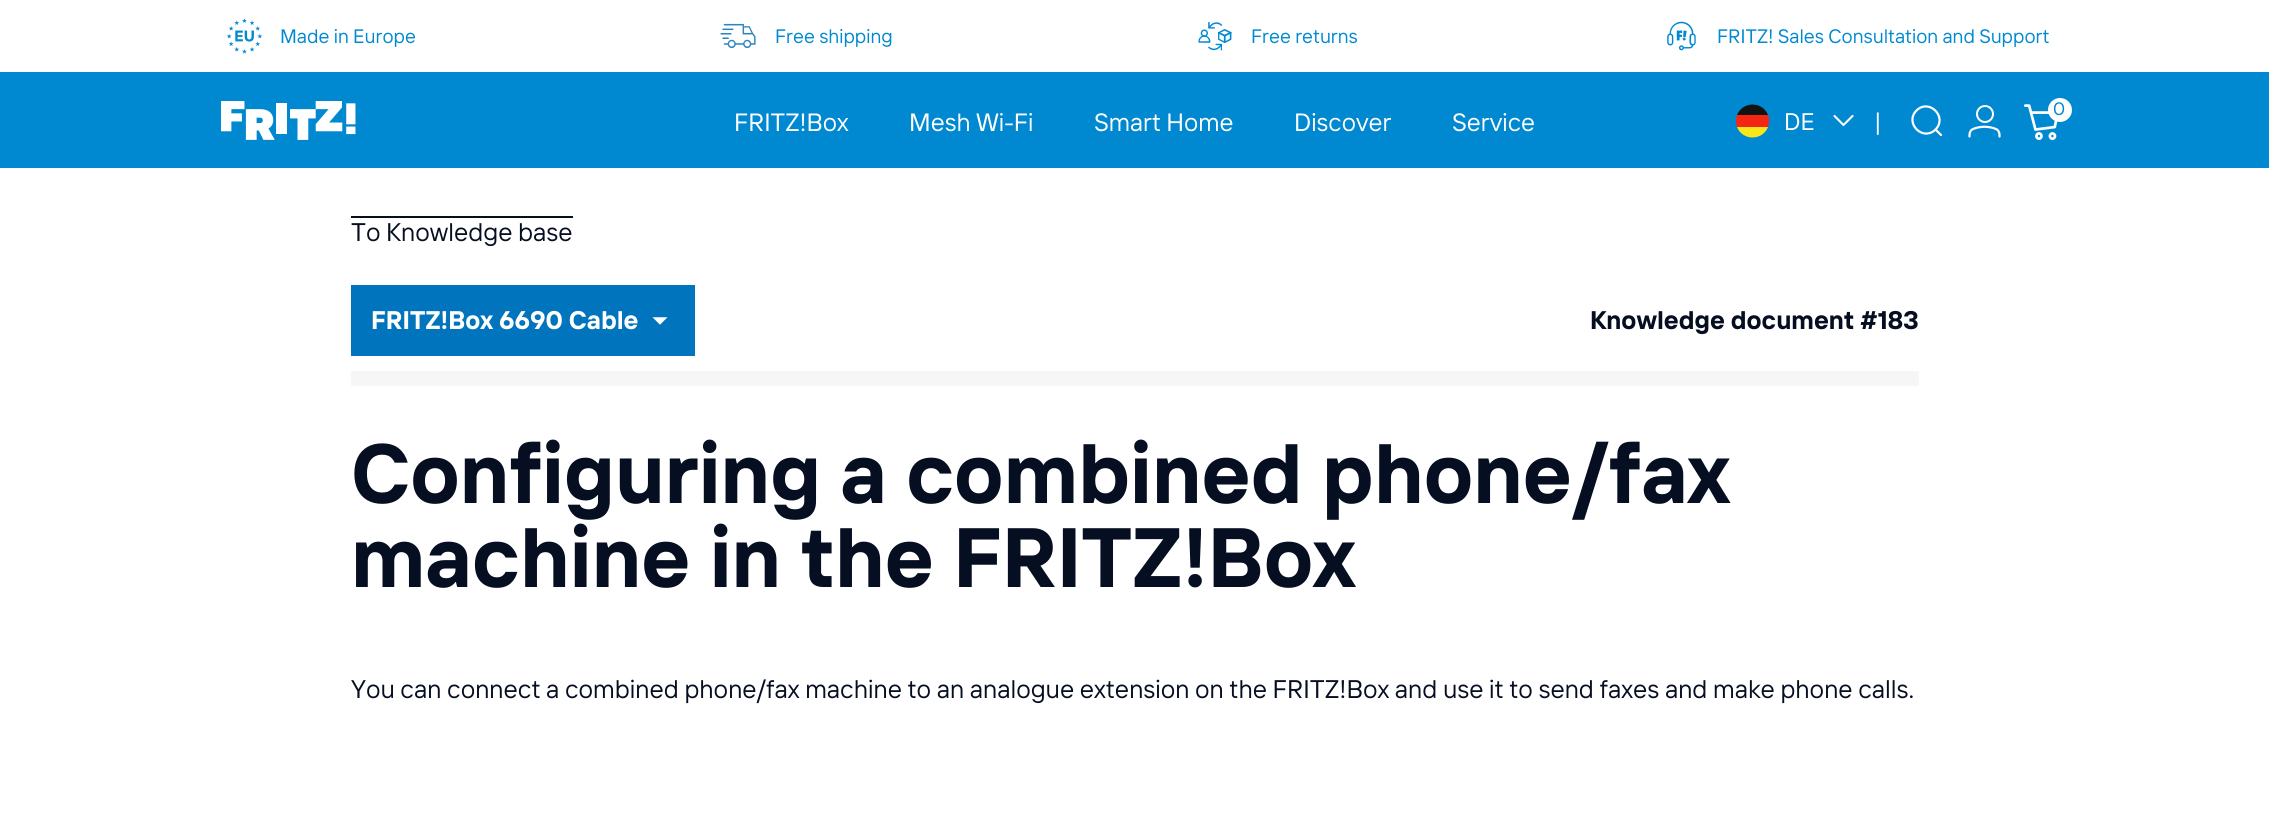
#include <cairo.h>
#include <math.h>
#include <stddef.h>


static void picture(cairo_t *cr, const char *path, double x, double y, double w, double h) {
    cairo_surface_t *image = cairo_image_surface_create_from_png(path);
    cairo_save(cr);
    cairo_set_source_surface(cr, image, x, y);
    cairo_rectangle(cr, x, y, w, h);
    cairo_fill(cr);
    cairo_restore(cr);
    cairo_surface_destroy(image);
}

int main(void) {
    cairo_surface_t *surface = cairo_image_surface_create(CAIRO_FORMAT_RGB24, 2269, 816);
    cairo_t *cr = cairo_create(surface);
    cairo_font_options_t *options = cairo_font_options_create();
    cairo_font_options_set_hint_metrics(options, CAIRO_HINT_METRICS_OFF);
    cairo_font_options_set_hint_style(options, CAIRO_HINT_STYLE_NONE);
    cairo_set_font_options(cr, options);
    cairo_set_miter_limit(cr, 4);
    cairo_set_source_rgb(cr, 1, 1, 1);
    cairo_paint(cr);
    picture(cr, "img1.png", 226, 18, 37, 36);
    cairo_select_font_face(cr, "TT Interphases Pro", CAIRO_FONT_SLANT_NORMAL, CAIRO_FONT_WEIGHT_NORMAL);
    cairo_set_font_size(cr, 19.5);
    cairo_set_source_rgb(cr, 0, 0.537, 0.82);
    cairo_move_to(cr, 280, 43);
    cairo_show_text(cr, "Made in Europe");
    picture(cr, "img2.png", 720, 23, 36, 26);
    cairo_move_to(cr, 775, 43);
    cairo_show_text(cr, "Free shipping");
    picture(cr, "img3.png", 1198, 21, 34, 30);
    cairo_move_to(cr, 1251, 43);
    cairo_show_text(cr, "Free returns");
    picture(cr, "img4.png", 1667, 21, 29, 30);
    cairo_move_to(cr, 1717, 43);
    cairo_show_text(cr, "FRITZ! Sales Consultation and Support");
    cairo_rectangle(cr, 0, 72, 2269, 96);
    cairo_fill(cr);
    picture(cr, "img5.png", 221, 101, 135, 39);
    cairo_set_font_size(cr, 25);
    cairo_set_source_rgb(cr, 1, 1, 1);
    cairo_move_to(cr, 734, 131);
    cairo_show_text(cr, "FRITZ!Box");
    cairo_move_to(cr, 909, 131);
    cairo_show_text(cr, "Mesh Wi-Fi");
    cairo_move_to(cr, 1094, 131);
    cairo_show_text(cr, "Smart Home");
    cairo_move_to(cr, 1294, 131);
    cairo_show_text(cr, "Discover");
    cairo_move_to(cr, 1452, 131);
    cairo_show_text(cr, "Service");
    cairo_new_path(cr);
    cairo_move_to(cr, 1941, 135);
    cairo_line_to(cr, 1935.5, 129.5);
    cairo_move_to(cr, 1935.5, 129.5);
    cairo_curve_to(cr, 1948, 117, 1929, 98, 1916.5, 110.5);
    cairo_curve_to(cr, 1904, 123, 1923, 142, 1935.5, 129.5);
    cairo_close_path(cr);
    cairo_set_line_width(cr, 2.2);
    cairo_set_line_cap(cr, CAIRO_LINE_CAP_ROUND);
    cairo_stroke(cr);
    picture(cr, "img6.png", 1968, 105, 33, 33);
    picture(cr, "img7.png", 2024, 104, 34, 36);
    cairo_arc(cr, 2060, 110, 12, 0, 2 * M_PI);
    cairo_fill(cr);
    cairo_set_font_size(cr, 18);
    cairo_set_source_rgb(cr, 0, 0.537, 0.82);
    cairo_move_to(cr, 2053, 115);
    cairo_show_text(cr, "0");
    cairo_set_source_rgb(cr, 0.953, 0.149, 0.078);
    cairo_new_path(cr);
    cairo_move_to(cr, 1768, 115);
    cairo_line_to(cr, 1737, 115);
    cairo_curve_to(cr, 1735.5, 119, 1735.5, 124, 1737.5, 128);
    cairo_line_to(cr, 1767.5, 128);
    cairo_curve_to(cr, 1769.5, 124, 1769.5, 119, 1768, 115);
    cairo_close_path(cr);
    cairo_fill(cr);
    cairo_set_source_rgb(cr, 0.973, 0.906, 0.11);
    cairo_new_path(cr);
    cairo_move_to(cr, 1768, 127);
    cairo_line_to(cr, 1737, 127);
    cairo_curve_to(cr, 1742.5, 141, 1762.5, 141, 1768, 127);
    cairo_close_path(cr);
    cairo_fill(cr);
    cairo_set_source_rgb(cr, 0.075, 0.078, 0.075);
    cairo_new_path(cr);
    cairo_move_to(cr, 1752.5, 104.5);
    cairo_curve_to(cr, 1759.5, 104.5, 1765.5, 108.5, 1768, 115);
    cairo_line_to(cr, 1737, 115);
    cairo_curve_to(cr, 1739.5, 108.5, 1746, 104.5, 1752.5, 104.5);
    cairo_close_path(cr);
    cairo_fill(cr);
    cairo_set_font_size(cr, 24);
    cairo_set_source_rgb(cr, 1, 1, 1);
    cairo_move_to(cr, 1784, 130);
    cairo_show_text(cr, "DE");
    cairo_new_path(cr);
    cairo_move_to(cr, 1834.5, 116);
    cairo_line_to(cr, 1843.5, 125);
    cairo_line_to(cr, 1852.5, 116);
    cairo_set_line_width(cr, 2.1);
    cairo_set_line_join(cr, CAIRO_LINE_JOIN_ROUND);
    cairo_stroke(cr);
    cairo_move_to(cr, 1874, 130);
    cairo_show_text(cr, "|");
    cairo_set_font_size(cr, 25.5);
    cairo_set_source_rgb(cr, 0.027, 0.055, 0.129);
    cairo_move_to(cr, 351, 241);
    cairo_show_text(cr, "To Knowledge base");
    cairo_rectangle(cr, 351, 216, 222, 2);
    cairo_fill(cr);
    cairo_set_source_rgb(cr, 0.961, 0.961, 0.961);
    cairo_rectangle(cr, 351, 371, 1568, 15);
    cairo_fill(cr);
    cairo_set_source_rgb(cr, 0, 0.455, 0.741);
    cairo_rectangle(cr, 351, 285, 344, 71);
    cairo_fill(cr);
    cairo_select_font_face(cr, "TT Interphases Pro", CAIRO_FONT_SLANT_NORMAL, CAIRO_FONT_WEIGHT_BOLD);
    cairo_set_source_rgb(cr, 1, 1, 1);
    cairo_move_to(cr, 371, 329);
    cairo_show_text(cr, "FRITZ!Box 6690 Cable");
    picture(cr, "img8.png", 652, 317, 16, 8);
    cairo_set_source_rgb(cr, 0.027, 0.055, 0.129);
    cairo_move_to(cr, 1590, 329);
    cairo_show_text(cr, "Knowledge document #183");
    cairo_set_font_size(cr, 84);
    cairo_move_to(cr, 351, 503);
    cairo_show_text(cr, "Configuring a combined phone/fax");
    cairo_move_to(cr, 351, 587);
    cairo_show_text(cr, "machine in the FRITZ!Box");
    cairo_select_font_face(cr, "TT Interphases Pro", CAIRO_FONT_SLANT_NORMAL, CAIRO_FONT_WEIGHT_NORMAL);
    cairo_set_font_size(cr, 25.5);
    cairo_move_to(cr, 351, 698);
    cairo_show_text(cr, "You can connect a combined phone/fax machine to an analogue extension on the FRITZ!Box and use it to send faxes and make phone calls.");
    cairo_surface_write_to_png(surface, "page.png");
    cairo_font_options_destroy(options);
    cairo_destroy(cr);
    cairo_surface_destroy(surface);
    return 0;
}
